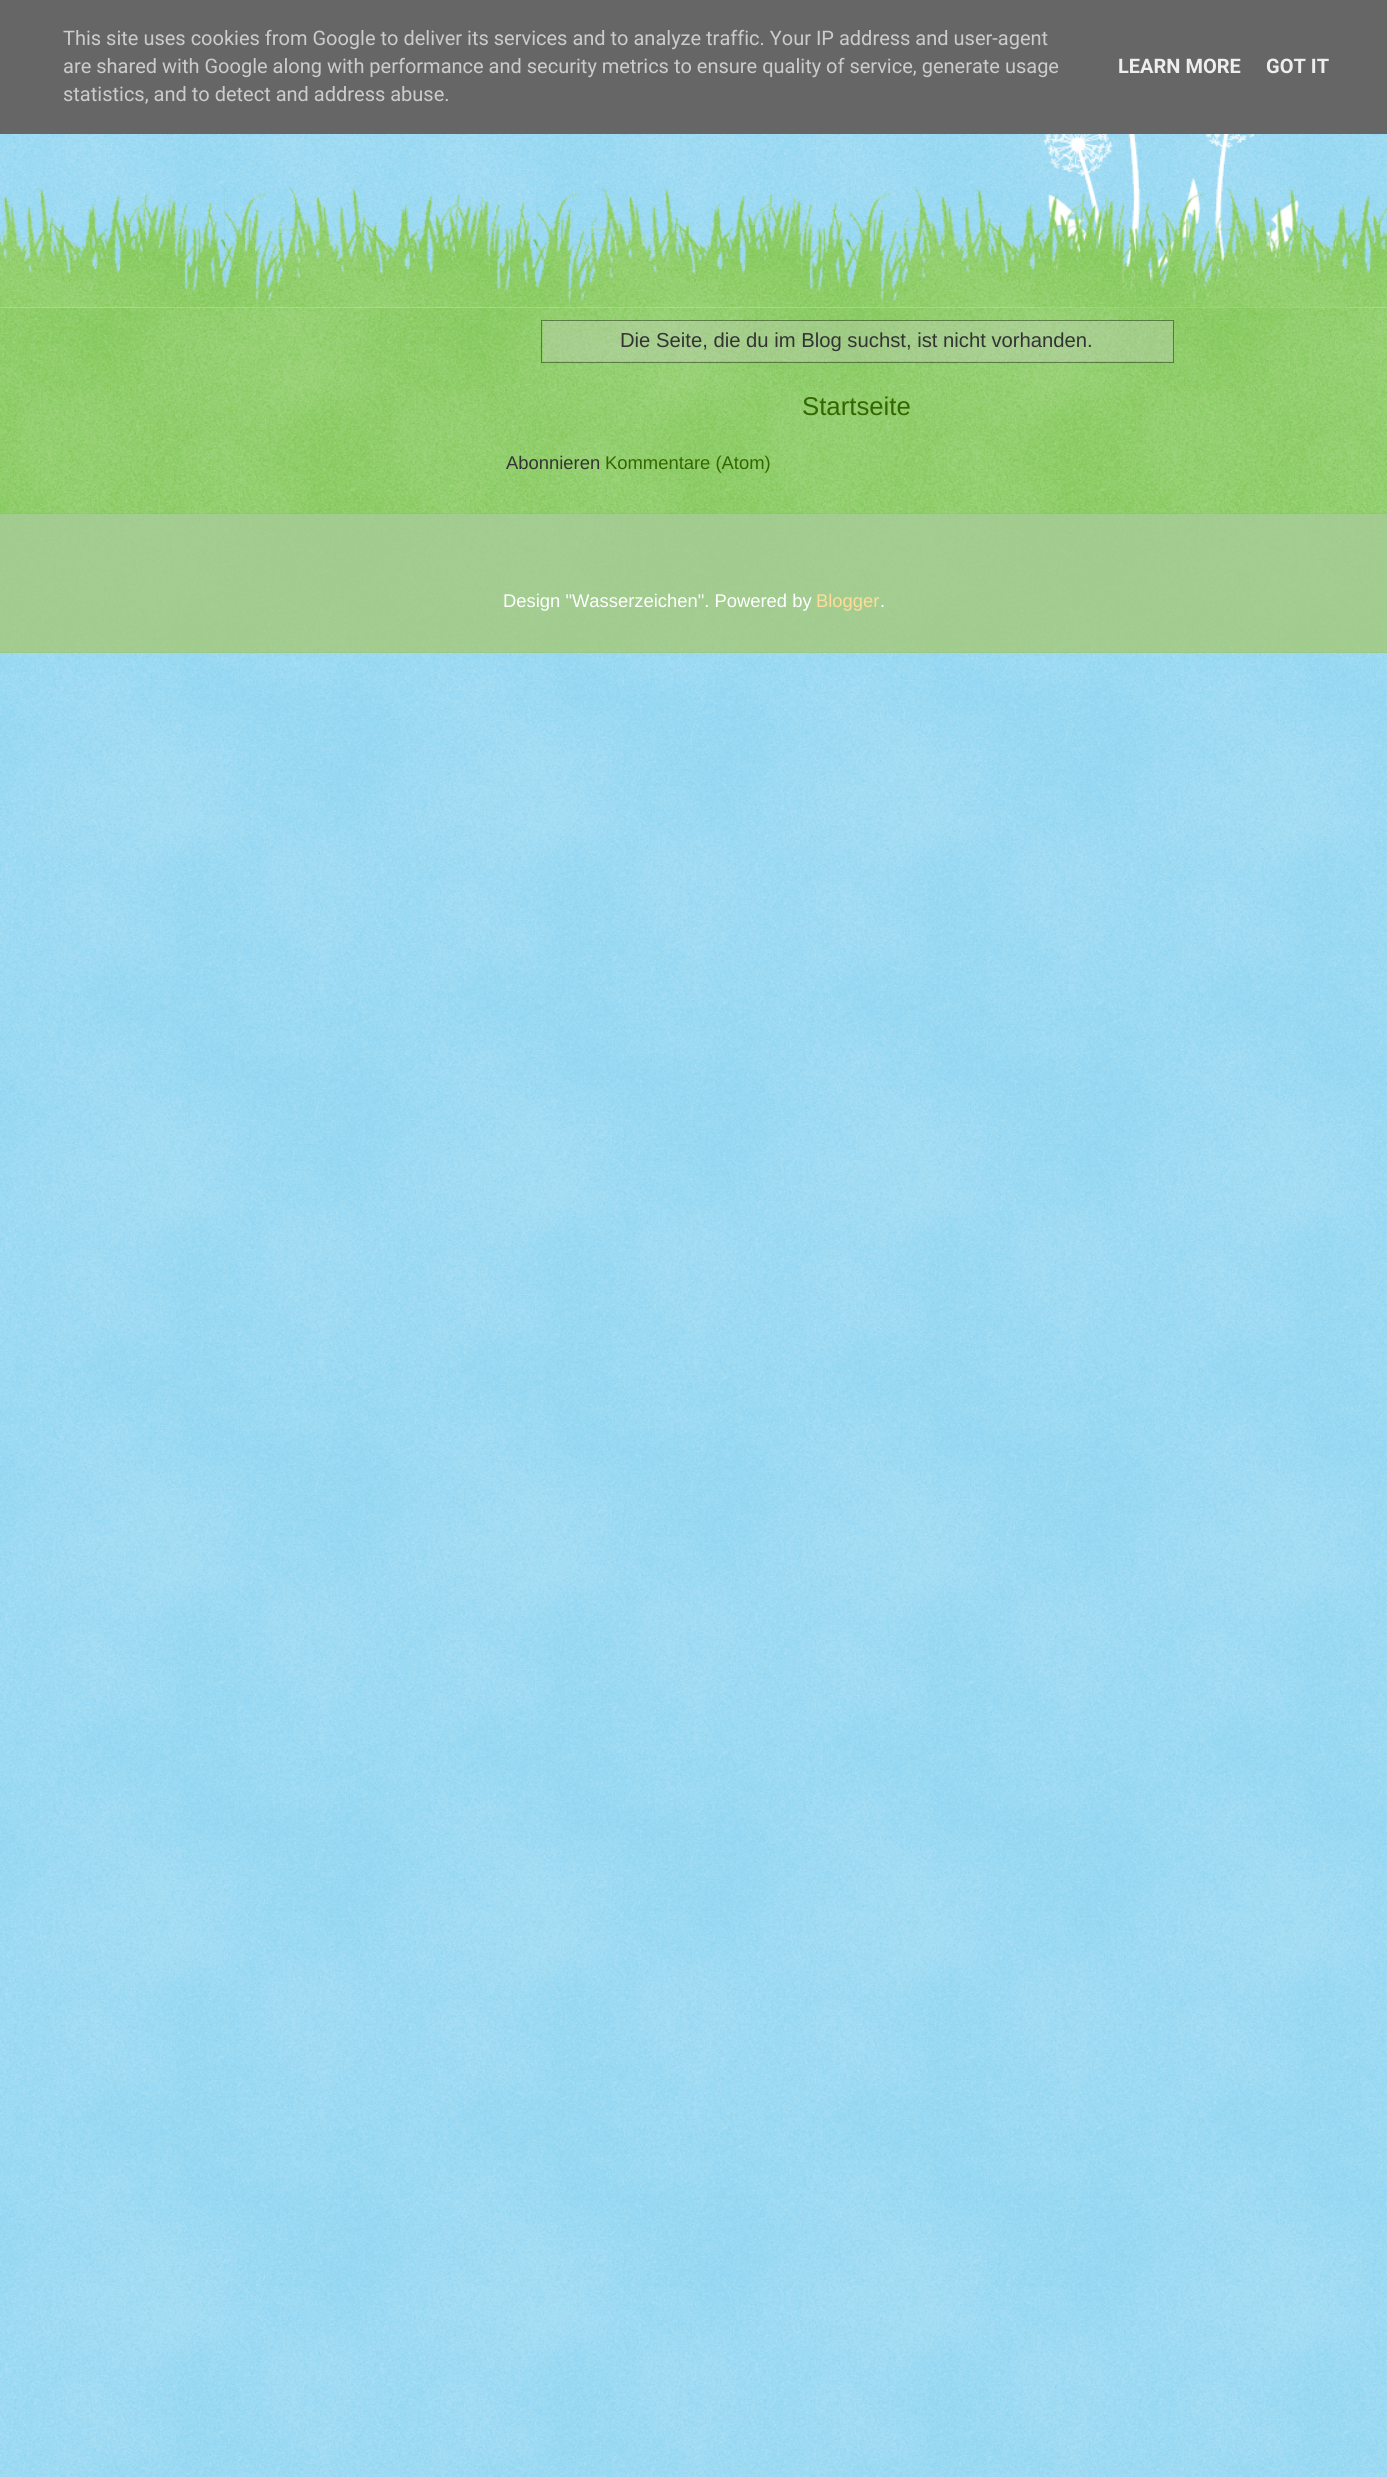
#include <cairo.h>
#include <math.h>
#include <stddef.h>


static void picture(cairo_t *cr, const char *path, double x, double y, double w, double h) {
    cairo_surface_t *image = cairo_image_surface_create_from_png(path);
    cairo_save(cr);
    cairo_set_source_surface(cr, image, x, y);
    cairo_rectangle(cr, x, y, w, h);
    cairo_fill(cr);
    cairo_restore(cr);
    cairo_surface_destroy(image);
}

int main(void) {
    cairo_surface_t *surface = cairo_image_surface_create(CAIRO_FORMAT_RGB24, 1387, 2477);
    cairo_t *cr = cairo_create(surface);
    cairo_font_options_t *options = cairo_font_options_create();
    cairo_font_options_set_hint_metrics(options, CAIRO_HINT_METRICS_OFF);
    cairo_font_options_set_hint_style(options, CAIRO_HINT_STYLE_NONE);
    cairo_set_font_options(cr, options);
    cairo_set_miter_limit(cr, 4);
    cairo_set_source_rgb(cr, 0.467, 0.8, 0.933);
    cairo_paint(cr);
    picture(cr, "img1.png", 0, 134, 1387, 2343);
    cairo_set_source_rgb(cr, 0.4, 0.4, 0.4);
    cairo_rectangle(cr, 0, 0, 1387, 134);
    cairo_fill(cr);
    cairo_select_font_face(cr, "Roboto", CAIRO_FONT_SLANT_NORMAL, CAIRO_FONT_WEIGHT_NORMAL);
    cairo_set_font_size(cr, 20);
    cairo_set_source_rgb(cr, 0.8, 0.8, 0.8);
    cairo_move_to(cr, 63, 45);
    cairo_show_text(cr, "This site uses cookies from Google to deliver its services and to analyze traffic. Your IP address and user-agent");
    cairo_move_to(cr, 63, 73);
    cairo_show_text(cr, "are shared with Google along with performance and security metrics to ensure quality of service, generate usage");
    cairo_move_to(cr, 63, 101);
    cairo_show_text(cr, "statistics, and to detect and address abuse.");
    cairo_select_font_face(cr, "Roboto", CAIRO_FONT_SLANT_NORMAL, CAIRO_FONT_WEIGHT_BOLD);
    cairo_set_source_rgb(cr, 0.933, 0.933, 0.933);
    cairo_move_to(cr, 1118, 73);
    cairo_show_text(cr, "LEARN MORE");
    cairo_move_to(cr, 1266, 73);
    cairo_show_text(cr, "GOT IT");
    cairo_set_source_rgb(cr, 0.4, 0.733, 0.2);
    cairo_rectangle(cr, 0, 308, 1387, 206);
    cairo_fill(cr);
    picture(cr, "img2.png", 0, 307, 1387, 207);
    picture(cr, "img3.png", 1037, 134, 313, 174);
    picture(cr, "img4.png", 0, 187, 1387, 121);
    cairo_rectangle(cr, 541.5, 320.5, 632, 42);
    cairo_set_source_rgba(cr, 0, 0, 0, 0.4);
    cairo_set_line_width(cr, 1);
    cairo_stroke(cr);
    cairo_set_source_rgba(cr, 0.8, 0.8, 0.8, 0.32);
    cairo_rectangle(cr, 543, 321, 630, 40);
    cairo_fill(cr);
    cairo_select_font_face(cr, "Liberation Sans", CAIRO_FONT_SLANT_NORMAL, CAIRO_FONT_WEIGHT_NORMAL);
    cairo_set_font_size(cr, 20.25);
    cairo_set_source_rgb(cr, 0.2, 0.2, 0.2);
    cairo_move_to(cr, 620, 347);
    cairo_show_text(cr, "Die Seite, die du im Blog suchst, ist nicht vorhanden.");
    cairo_set_font_size(cr, 25.75);
    cairo_set_source_rgb(cr, 0.2, 0.4, 0);
    cairo_move_to(cr, 802, 415);
    cairo_show_text(cr, "Startseite");
    cairo_set_font_size(cr, 18.4);
    cairo_set_source_rgb(cr, 0.2, 0.2, 0.2);
    cairo_move_to(cr, 506, 469);
    cairo_show_text(cr, "Abonnieren");
    cairo_set_source_rgb(cr, 0.2, 0.4, 0);
    cairo_move_to(cr, 605, 469);
    cairo_show_text(cr, "Kommentare (Atom)");
    cairo_set_source_rgb(cr, 0.576, 0.769, 0.49);
    cairo_rectangle(cr, 0, 514, 1387, 139);
    cairo_fill(cr);
    picture(cr, "img5.png", 0, 513, 1387, 140);
    cairo_set_source_rgb(cr, 1, 1, 1);
    cairo_move_to(cr, 503, 607);
    cairo_show_text(cr, "Design \"Wasserzeichen\". Powered by");
    cairo_set_source_rgb(cr, 1, 0.867, 0.6);
    cairo_move_to(cr, 816, 607);
    cairo_show_text(cr, "Blogger");
    cairo_set_source_rgb(cr, 1, 1, 1);
    cairo_move_to(cr, 880, 607);
    cairo_show_text(cr, ".");
    cairo_surface_write_to_png(surface, "page.png");
    cairo_font_options_destroy(options);
    cairo_destroy(cr);
    cairo_surface_destroy(surface);
    return 0;
}
